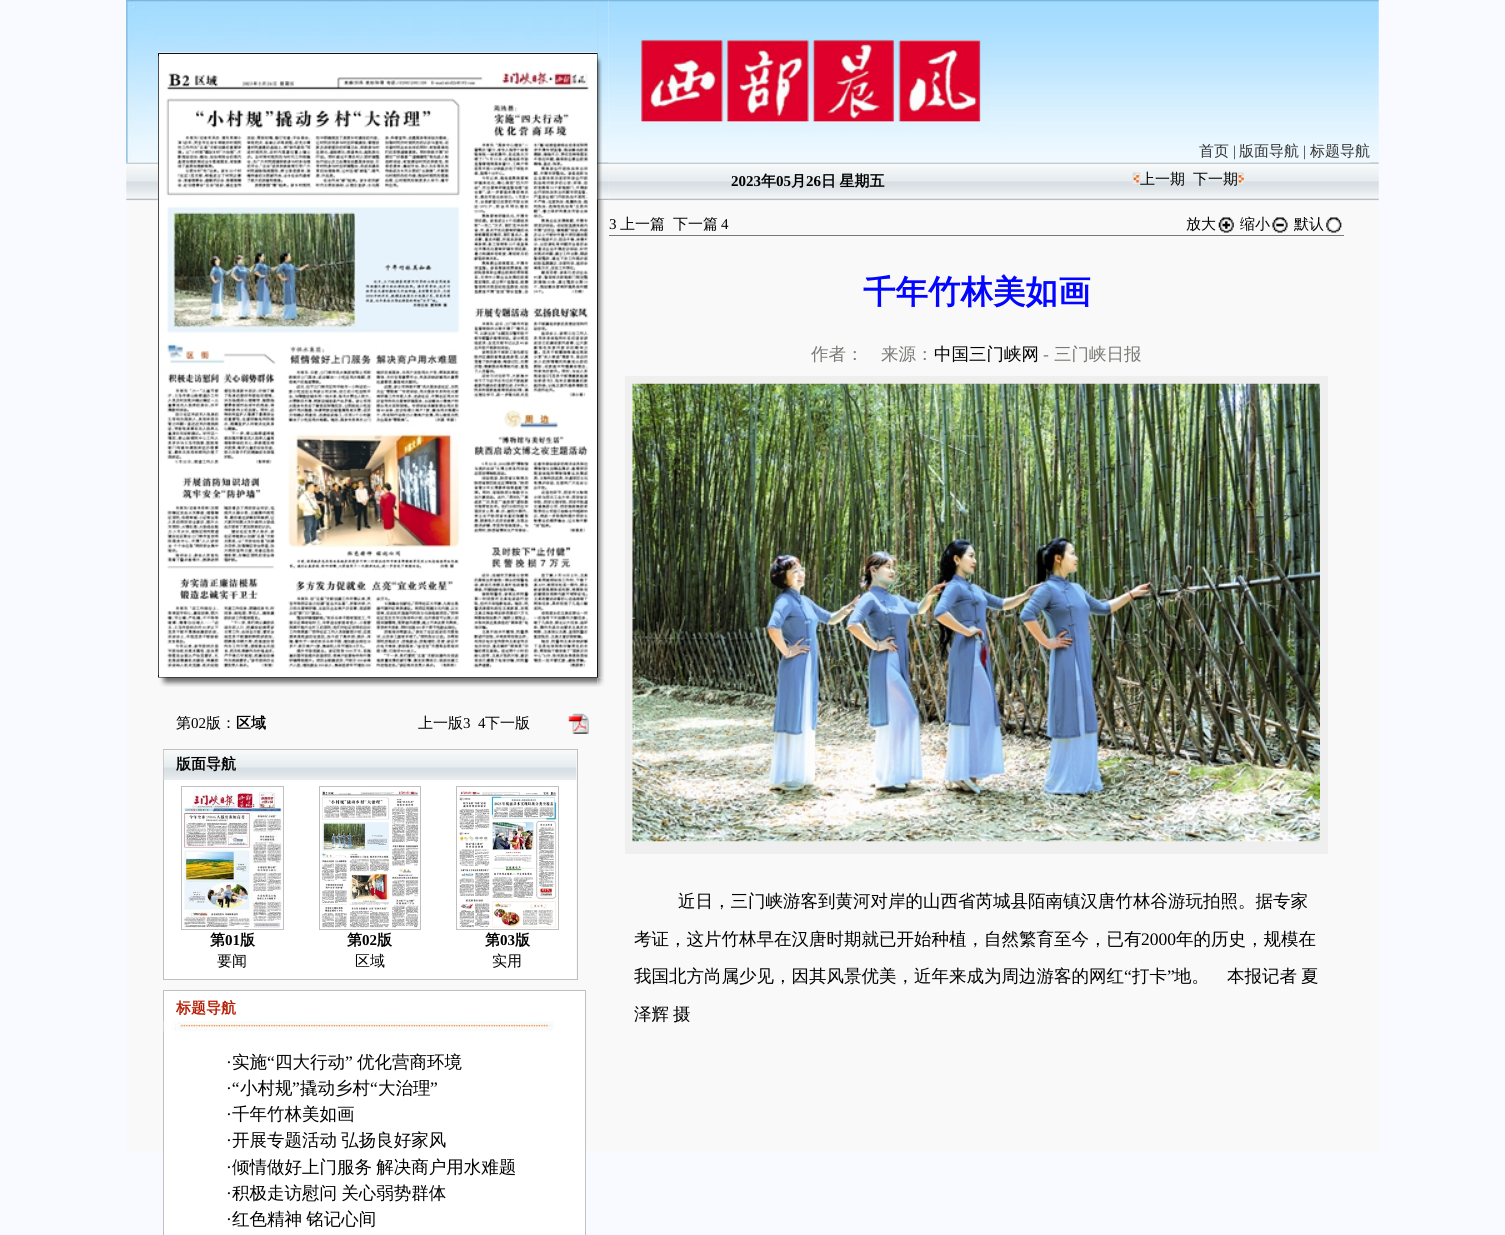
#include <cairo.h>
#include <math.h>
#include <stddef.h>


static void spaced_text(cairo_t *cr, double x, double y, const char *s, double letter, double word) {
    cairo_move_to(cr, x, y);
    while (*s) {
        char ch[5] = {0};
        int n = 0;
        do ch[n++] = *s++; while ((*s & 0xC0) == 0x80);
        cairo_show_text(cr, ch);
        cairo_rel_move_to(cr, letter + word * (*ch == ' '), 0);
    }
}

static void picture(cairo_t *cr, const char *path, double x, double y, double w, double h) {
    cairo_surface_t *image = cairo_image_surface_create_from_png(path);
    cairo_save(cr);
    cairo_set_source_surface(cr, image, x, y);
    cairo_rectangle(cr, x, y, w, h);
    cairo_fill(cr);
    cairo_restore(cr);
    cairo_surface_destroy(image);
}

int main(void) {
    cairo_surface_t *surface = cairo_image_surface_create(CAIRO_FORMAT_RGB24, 1505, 1235);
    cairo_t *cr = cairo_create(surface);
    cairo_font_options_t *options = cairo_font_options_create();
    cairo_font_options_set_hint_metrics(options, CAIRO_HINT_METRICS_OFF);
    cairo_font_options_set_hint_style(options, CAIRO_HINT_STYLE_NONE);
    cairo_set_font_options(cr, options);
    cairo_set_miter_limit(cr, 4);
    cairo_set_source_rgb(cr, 0.969, 0.98, 1);
    cairo_paint(cr);
    picture(cr, "img1.png", 126, 0, 1253, 1151);
    picture(cr, "img2.png", 126, 0, 32, 163);
    cairo_set_source_rgb(cr, 1, 1, 1);
    cairo_rectangle(cr, 158, 0, 440, 53);
    cairo_fill(cr);
    picture(cr, "img15.png", 608, 39, 762, 124);
    picture(cr, "img4.png", 597, 0, 12, 678);
    picture(cr, "img3.png", 158, 0, 440, 53);
    cairo_rectangle(cr, 158.5, 53.5, 439, 624);
    cairo_fill_preserve(cr);
    cairo_set_source_rgb(cr, 0.067, 0.067, 0.067);
    cairo_set_line_width(cr, 1);
    cairo_stroke(cr);
    picture(cr, "img5.png", 597, 0, 12, 200);
    picture(cr, "img6.png", 158, 56, 431, 619);
    picture(cr, "img7.png", 158, 677, 440, 10);
    picture(cr, "img8.png", 597, 677, 8, 10);
    cairo_select_font_face(cr, "WenQuanYi Zen Hei Medium", CAIRO_FONT_SLANT_NORMAL, CAIRO_FONT_WEIGHT_NORMAL);
    cairo_set_font_size(cr, 15);
    cairo_set_source_rgb(cr, 0, 0, 0);
    cairo_move_to(cr, 176, 728);
    cairo_show_text(cr, "第");
    cairo_select_font_face(cr, "Liberation Serif", CAIRO_FONT_SLANT_NORMAL, CAIRO_FONT_WEIGHT_NORMAL);
    cairo_move_to(cr, 191, 728);
    cairo_show_text(cr, "02");
    cairo_select_font_face(cr, "WenQuanYi Zen Hei Medium", CAIRO_FONT_SLANT_NORMAL, CAIRO_FONT_WEIGHT_NORMAL);
    cairo_move_to(cr, 206, 728);
    cairo_show_text(cr, "版：");
    cairo_select_font_face(cr, "WenQuanYi Zen Hei", CAIRO_FONT_SLANT_NORMAL, CAIRO_FONT_WEIGHT_BOLD);
    cairo_move_to(cr, 236, 728);
    cairo_show_text(cr, "区域");
    cairo_select_font_face(cr, "WenQuanYi Zen Hei Medium", CAIRO_FONT_SLANT_NORMAL, CAIRO_FONT_WEIGHT_NORMAL);
    cairo_move_to(cr, 418, 728);
    cairo_show_text(cr, "上一版");
    cairo_select_font_face(cr, "Liberation Serif", CAIRO_FONT_SLANT_NORMAL, CAIRO_FONT_WEIGHT_NORMAL);
    cairo_move_to(cr, 463, 728);
    cairo_show_text(cr, "3");
    cairo_move_to(cr, 478, 728);
    cairo_show_text(cr, "4");
    cairo_select_font_face(cr, "WenQuanYi Zen Hei Medium", CAIRO_FONT_SLANT_NORMAL, CAIRO_FONT_WEIGHT_NORMAL);
    cairo_move_to(cr, 485, 728);
    cairo_show_text(cr, "下一版");
    picture(cr, "img9.png", 568, 713, 21, 21);
    cairo_rectangle(cr, 163.5, 749.5, 414, 230);
    cairo_set_source_rgb(cr, 0.753, 0.753, 0.753);
    cairo_stroke(cr);
    picture(cr, "img10.png", 163, 750, 414, 30);
    cairo_select_font_face(cr, "WenQuanYi Zen Hei", CAIRO_FONT_SLANT_NORMAL, CAIRO_FONT_WEIGHT_BOLD);
    cairo_set_source_rgb(cr, 0, 0, 0);
    cairo_move_to(cr, 176, 769);
    cairo_show_text(cr, "版面导航");
    cairo_set_source_rgb(cr, 1, 1, 1);
    cairo_rectangle(cr, 164, 780, 412, 199);
    cairo_fill(cr);
    cairo_rectangle(cr, 181.5, 786.5, 102, 143);
    cairo_set_source_rgb(cr, 0.753, 0.753, 0.753);
    cairo_stroke(cr);
    picture(cr, "img11.png", 182, 787, 101, 141);
    cairo_set_source_rgb(cr, 0, 0, 0);
    cairo_move_to(cr, 210, 945);
    cairo_show_text(cr, "第");
    cairo_select_font_face(cr, "Liberation Serif", CAIRO_FONT_SLANT_NORMAL, CAIRO_FONT_WEIGHT_BOLD);
    cairo_move_to(cr, 225, 945);
    cairo_show_text(cr, "01");
    cairo_select_font_face(cr, "WenQuanYi Zen Hei", CAIRO_FONT_SLANT_NORMAL, CAIRO_FONT_WEIGHT_BOLD);
    cairo_move_to(cr, 240, 945);
    cairo_show_text(cr, "版");
    cairo_select_font_face(cr, "WenQuanYi Zen Hei Medium", CAIRO_FONT_SLANT_NORMAL, CAIRO_FONT_WEIGHT_NORMAL);
    cairo_move_to(cr, 217, 966);
    cairo_show_text(cr, "要闻");
    cairo_rectangle(cr, 319.5, 786.5, 101, 143);
    cairo_set_source_rgb(cr, 0.753, 0.753, 0.753);
    cairo_stroke(cr);
    picture(cr, "img12.png", 322, 791, 97, 137);
    cairo_select_font_face(cr, "WenQuanYi Zen Hei", CAIRO_FONT_SLANT_NORMAL, CAIRO_FONT_WEIGHT_BOLD);
    cairo_set_source_rgb(cr, 0, 0, 0);
    cairo_move_to(cr, 347, 945);
    cairo_show_text(cr, "第");
    cairo_select_font_face(cr, "Liberation Serif", CAIRO_FONT_SLANT_NORMAL, CAIRO_FONT_WEIGHT_BOLD);
    cairo_move_to(cr, 362, 945);
    cairo_show_text(cr, "02");
    cairo_select_font_face(cr, "WenQuanYi Zen Hei", CAIRO_FONT_SLANT_NORMAL, CAIRO_FONT_WEIGHT_BOLD);
    cairo_move_to(cr, 377, 945);
    cairo_show_text(cr, "版");
    cairo_select_font_face(cr, "WenQuanYi Zen Hei Medium", CAIRO_FONT_SLANT_NORMAL, CAIRO_FONT_WEIGHT_NORMAL);
    cairo_move_to(cr, 355, 966);
    cairo_show_text(cr, "区域");
    cairo_rectangle(cr, 456.5, 786.5, 102, 143);
    cairo_set_source_rgb(cr, 0.753, 0.753, 0.753);
    cairo_stroke(cr);
    picture(cr, "img13.png", 459, 791, 98, 137);
    cairo_select_font_face(cr, "WenQuanYi Zen Hei", CAIRO_FONT_SLANT_NORMAL, CAIRO_FONT_WEIGHT_BOLD);
    cairo_set_source_rgb(cr, 0, 0, 0);
    cairo_move_to(cr, 485, 945);
    cairo_show_text(cr, "第");
    cairo_select_font_face(cr, "Liberation Serif", CAIRO_FONT_SLANT_NORMAL, CAIRO_FONT_WEIGHT_BOLD);
    cairo_move_to(cr, 500, 945);
    cairo_show_text(cr, "03");
    cairo_select_font_face(cr, "WenQuanYi Zen Hei", CAIRO_FONT_SLANT_NORMAL, CAIRO_FONT_WEIGHT_BOLD);
    cairo_move_to(cr, 515, 945);
    cairo_show_text(cr, "版");
    cairo_select_font_face(cr, "WenQuanYi Zen Hei Medium", CAIRO_FONT_SLANT_NORMAL, CAIRO_FONT_WEIGHT_NORMAL);
    cairo_move_to(cr, 492, 966);
    cairo_show_text(cr, "实用");
    cairo_rectangle(cr, 163.5, 990.5, 422, 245);
    cairo_set_source_rgb(cr, 0.753, 0.753, 0.753);
    cairo_stroke(cr);
    cairo_set_source_rgb(cr, 1, 1, 1);
    cairo_rectangle(cr, 164, 991, 421, 244);
    cairo_fill(cr);
    cairo_select_font_face(cr, "WenQuanYi Zen Hei", CAIRO_FONT_SLANT_NORMAL, CAIRO_FONT_WEIGHT_BOLD);
    cairo_set_source_rgb(cr, 0.71, 0.125, 0.031);
    cairo_move_to(cr, 176, 1013);
    cairo_show_text(cr, "标题导航");
    picture(cr, "img14.png", 163, 1021, 391, 11);
    cairo_select_font_face(cr, "WenQuanYi Zen Hei Medium", CAIRO_FONT_SLANT_NORMAL, CAIRO_FONT_WEIGHT_NORMAL);
    cairo_set_font_size(cr, 17.5);
    cairo_set_source_rgb(cr, 0, 0, 0);
    cairo_move_to(cr, 232, 1068);
    cairo_show_text(cr, "实施");
    cairo_select_font_face(cr, "Liberation Serif", CAIRO_FONT_SLANT_NORMAL, CAIRO_FONT_WEIGHT_NORMAL);
    cairo_move_to(cr, 267, 1068);
    cairo_show_text(cr, "“");
    cairo_select_font_face(cr, "WenQuanYi Zen Hei Medium", CAIRO_FONT_SLANT_NORMAL, CAIRO_FONT_WEIGHT_NORMAL);
    cairo_move_to(cr, 275, 1068);
    cairo_show_text(cr, "四大行动");
    cairo_select_font_face(cr, "Liberation Serif", CAIRO_FONT_SLANT_NORMAL, CAIRO_FONT_WEIGHT_NORMAL);
    cairo_move_to(cr, 345, 1068);
    cairo_show_text(cr, "”");
    cairo_select_font_face(cr, "WenQuanYi Zen Hei Medium", CAIRO_FONT_SLANT_NORMAL, CAIRO_FONT_WEIGHT_NORMAL);
    cairo_move_to(cr, 357, 1068);
    cairo_show_text(cr, "优化营商环境");
    cairo_select_font_face(cr, "Liberation Serif", CAIRO_FONT_SLANT_NORMAL, CAIRO_FONT_WEIGHT_NORMAL);
    cairo_move_to(cr, 226, 1068);
    cairo_show_text(cr, "·");
    cairo_move_to(cr, 226, 1094);
    cairo_show_text(cr, "·“");
    cairo_select_font_face(cr, "WenQuanYi Zen Hei Medium", CAIRO_FONT_SLANT_NORMAL, CAIRO_FONT_WEIGHT_NORMAL);
    cairo_move_to(cr, 240, 1094);
    cairo_show_text(cr, "小村规");
    cairo_select_font_face(cr, "Liberation Serif", CAIRO_FONT_SLANT_NORMAL, CAIRO_FONT_WEIGHT_NORMAL);
    cairo_move_to(cr, 292, 1094);
    cairo_show_text(cr, "”");
    cairo_select_font_face(cr, "WenQuanYi Zen Hei Medium", CAIRO_FONT_SLANT_NORMAL, CAIRO_FONT_WEIGHT_NORMAL);
    cairo_move_to(cr, 300, 1094);
    cairo_show_text(cr, "撬动乡村");
    cairo_select_font_face(cr, "Liberation Serif", CAIRO_FONT_SLANT_NORMAL, CAIRO_FONT_WEIGHT_NORMAL);
    cairo_move_to(cr, 370, 1094);
    cairo_show_text(cr, "“");
    cairo_select_font_face(cr, "WenQuanYi Zen Hei Medium", CAIRO_FONT_SLANT_NORMAL, CAIRO_FONT_WEIGHT_NORMAL);
    cairo_move_to(cr, 378, 1094);
    cairo_show_text(cr, "大治理");
    cairo_select_font_face(cr, "Liberation Serif", CAIRO_FONT_SLANT_NORMAL, CAIRO_FONT_WEIGHT_NORMAL);
    cairo_move_to(cr, 430, 1094);
    cairo_show_text(cr, "”");
    cairo_move_to(cr, 226, 1120);
    cairo_show_text(cr, "·");
    cairo_select_font_face(cr, "WenQuanYi Zen Hei Medium", CAIRO_FONT_SLANT_NORMAL, CAIRO_FONT_WEIGHT_NORMAL);
    cairo_move_to(cr, 232, 1120);
    cairo_show_text(cr, "千年竹林美如画");
    cairo_select_font_face(cr, "Liberation Serif", CAIRO_FONT_SLANT_NORMAL, CAIRO_FONT_WEIGHT_NORMAL);
    cairo_move_to(cr, 226, 1146);
    cairo_show_text(cr, "·");
    cairo_select_font_face(cr, "WenQuanYi Zen Hei Medium", CAIRO_FONT_SLANT_NORMAL, CAIRO_FONT_WEIGHT_NORMAL);
    spaced_text(cr, 232, 1146, "开展专题活动 弘扬良好家风", 0, -1);
    cairo_select_font_face(cr, "Liberation Serif", CAIRO_FONT_SLANT_NORMAL, CAIRO_FONT_WEIGHT_NORMAL);
    cairo_move_to(cr, 226, 1173);
    cairo_show_text(cr, "·");
    cairo_select_font_face(cr, "WenQuanYi Zen Hei Medium", CAIRO_FONT_SLANT_NORMAL, CAIRO_FONT_WEIGHT_NORMAL);
    spaced_text(cr, 232, 1173, "倾情做好上门服务 解决商户用水难题", 0, -1);
    cairo_select_font_face(cr, "Liberation Serif", CAIRO_FONT_SLANT_NORMAL, CAIRO_FONT_WEIGHT_NORMAL);
    cairo_move_to(cr, 226, 1199);
    cairo_show_text(cr, "·");
    cairo_select_font_face(cr, "WenQuanYi Zen Hei Medium", CAIRO_FONT_SLANT_NORMAL, CAIRO_FONT_WEIGHT_NORMAL);
    spaced_text(cr, 232, 1199, "积极走访慰问 关心弱势群体", 0, -1);
    cairo_select_font_face(cr, "Liberation Serif", CAIRO_FONT_SLANT_NORMAL, CAIRO_FONT_WEIGHT_NORMAL);
    cairo_move_to(cr, 226, 1225);
    cairo_show_text(cr, "·");
    cairo_select_font_face(cr, "WenQuanYi Zen Hei Medium", CAIRO_FONT_SLANT_NORMAL, CAIRO_FONT_WEIGHT_NORMAL);
    spaced_text(cr, 232, 1225, "红色精神 铭记心间", 0, -1);
    cairo_set_font_size(cr, 15);
    cairo_set_source_rgb(cr, 0.2, 0.2, 0.2);
    cairo_move_to(cr, 1199, 156);
    cairo_show_text(cr, "首页");
    cairo_select_font_face(cr, "Liberation Serif", CAIRO_FONT_SLANT_NORMAL, CAIRO_FONT_WEIGHT_NORMAL);
    cairo_move_to(cr, 1233, 156);
    cairo_show_text(cr, "|");
    cairo_select_font_face(cr, "WenQuanYi Zen Hei Medium", CAIRO_FONT_SLANT_NORMAL, CAIRO_FONT_WEIGHT_NORMAL);
    cairo_move_to(cr, 1239, 156);
    cairo_show_text(cr, "版面导航");
    cairo_select_font_face(cr, "Liberation Serif", CAIRO_FONT_SLANT_NORMAL, CAIRO_FONT_WEIGHT_NORMAL);
    cairo_move_to(cr, 1303, 156);
    cairo_show_text(cr, "|");
    cairo_select_font_face(cr, "WenQuanYi Zen Hei Medium", CAIRO_FONT_SLANT_NORMAL, CAIRO_FONT_WEIGHT_NORMAL);
    cairo_move_to(cr, 1310, 156);
    cairo_show_text(cr, "标题导航");
    cairo_select_font_face(cr, "Liberation Serif", CAIRO_FONT_SLANT_NORMAL, CAIRO_FONT_WEIGHT_BOLD);
    cairo_set_source_rgb(cr, 0, 0, 0);
    cairo_move_to(cr, 731, 186);
    cairo_show_text(cr, "2023");
    cairo_select_font_face(cr, "WenQuanYi Zen Hei", CAIRO_FONT_SLANT_NORMAL, CAIRO_FONT_WEIGHT_BOLD);
    cairo_move_to(cr, 761, 186);
    cairo_show_text(cr, "年");
    cairo_select_font_face(cr, "Liberation Serif", CAIRO_FONT_SLANT_NORMAL, CAIRO_FONT_WEIGHT_BOLD);
    cairo_move_to(cr, 776, 186);
    cairo_show_text(cr, "05");
    cairo_select_font_face(cr, "WenQuanYi Zen Hei", CAIRO_FONT_SLANT_NORMAL, CAIRO_FONT_WEIGHT_BOLD);
    cairo_move_to(cr, 791, 186);
    cairo_show_text(cr, "月");
    cairo_select_font_face(cr, "Liberation Serif", CAIRO_FONT_SLANT_NORMAL, CAIRO_FONT_WEIGHT_BOLD);
    cairo_move_to(cr, 806, 186);
    cairo_show_text(cr, "26");
    cairo_select_font_face(cr, "WenQuanYi Zen Hei", CAIRO_FONT_SLANT_NORMAL, CAIRO_FONT_WEIGHT_BOLD);
    spaced_text(cr, 821, 186, "日 星期五", 0, -1);
    picture(cr, "img16.png", 1132, 172, 8, 12);
    cairo_select_font_face(cr, "WenQuanYi Zen Hei Medium", CAIRO_FONT_SLANT_NORMAL, CAIRO_FONT_WEIGHT_NORMAL);
    cairo_move_to(cr, 1140, 184);
    cairo_show_text(cr, "上一期");
    cairo_move_to(cr, 1193, 184);
    cairo_show_text(cr, "下一期");
    picture(cr, "img17.png", 1237, 172, 7, 12);
    cairo_set_source_rgb(cr, 0.471, 0.471, 0.471);
    cairo_rectangle(cr, 609, 235, 735, 1);
    cairo_fill(cr);
    cairo_select_font_face(cr, "Liberation Serif", CAIRO_FONT_SLANT_NORMAL, CAIRO_FONT_WEIGHT_NORMAL);
    cairo_set_source_rgb(cr, 0, 0, 0);
    cairo_move_to(cr, 609, 229);
    cairo_show_text(cr, "3");
    cairo_select_font_face(cr, "WenQuanYi Zen Hei Medium", CAIRO_FONT_SLANT_NORMAL, CAIRO_FONT_WEIGHT_NORMAL);
    cairo_move_to(cr, 620, 229);
    cairo_show_text(cr, "上一篇");
    cairo_move_to(cr, 673, 229);
    cairo_show_text(cr, "下一篇");
    cairo_select_font_face(cr, "Liberation Serif", CAIRO_FONT_SLANT_NORMAL, CAIRO_FONT_WEIGHT_NORMAL);
    cairo_move_to(cr, 721, 229);
    cairo_show_text(cr, "4");
    cairo_select_font_face(cr, "WenQuanYi Zen Hei Medium", CAIRO_FONT_SLANT_NORMAL, CAIRO_FONT_WEIGHT_NORMAL);
    cairo_move_to(cr, 1186, 229);
    cairo_show_text(cr, "放大");
    picture(cr, "img18.png", 1218, 217, 16, 16);
    cairo_move_to(cr, 1240, 229);
    cairo_show_text(cr, "缩小");
    picture(cr, "img19.png", 1272, 217, 16, 16);
    cairo_move_to(cr, 1294, 229);
    cairo_show_text(cr, "默认");
    picture(cr, "img20.png", 1326, 217, 16, 16);
    cairo_select_font_face(cr, "WenQuanYi Zen Hei", CAIRO_FONT_SLANT_NORMAL, CAIRO_FONT_WEIGHT_BOLD);
    cairo_set_font_size(cr, 32.5);
    cairo_set_source_rgb(cr, 0.008, 0.02, 1);
    cairo_move_to(cr, 863, 303);
    cairo_show_text(cr, "千年竹林美如画");
    cairo_select_font_face(cr, "WenQuanYi Zen Hei Medium", CAIRO_FONT_SLANT_NORMAL, CAIRO_FONT_WEIGHT_NORMAL);
    cairo_set_font_size(cr, 17.5);
    cairo_set_source_rgb(cr, 0.475, 0.471, 0.451);
    cairo_move_to(cr, 811, 360);
    cairo_show_text(cr, "作者：");
    cairo_move_to(cr, 881, 360);
    cairo_show_text(cr, "来源：");
    cairo_set_source_rgb(cr, 0, 0, 0);
    cairo_move_to(cr, 934, 360);
    cairo_show_text(cr, "中国三门峡网");
    cairo_select_font_face(cr, "Liberation Serif", CAIRO_FONT_SLANT_NORMAL, CAIRO_FONT_WEIGHT_NORMAL);
    cairo_set_source_rgb(cr, 0.475, 0.471, 0.451);
    cairo_move_to(cr, 1043, 360);
    cairo_show_text(cr, "-");
    cairo_select_font_face(cr, "WenQuanYi Zen Hei Medium", CAIRO_FONT_SLANT_NORMAL, CAIRO_FONT_WEIGHT_NORMAL);
    cairo_move_to(cr, 1054, 360);
    cairo_show_text(cr, "三门峡日报");
    cairo_set_source_rgb(cr, 0.937, 0.937, 0.937);
    cairo_rectangle(cr, 625, 376, 703, 478);
    cairo_fill(cr);
    picture(cr, "img21.png", 632, 383, 688, 459);
    cairo_set_source_rgb(cr, 0, 0, 0);
    cairo_move_to(cr, 678, 907);
    cairo_show_text(cr, "近日，三门峡游客到黄河对岸的山西省芮城县陌南镇汉唐竹林谷游玩拍照。据专家");
    cairo_move_to(cr, 634, 945);
    cairo_show_text(cr, "考证，这片竹林早在汉唐时期就已开始种植，自然繁育至今，已有");
    cairo_select_font_face(cr, "Liberation Serif", CAIRO_FONT_SLANT_NORMAL, CAIRO_FONT_WEIGHT_NORMAL);
    cairo_move_to(cr, 1141, 945);
    cairo_show_text(cr, "2000");
    cairo_select_font_face(cr, "WenQuanYi Zen Hei Medium", CAIRO_FONT_SLANT_NORMAL, CAIRO_FONT_WEIGHT_NORMAL);
    cairo_move_to(cr, 1176, 945);
    cairo_show_text(cr, "年的历史，规模在");
    cairo_move_to(cr, 634, 982);
    cairo_show_text(cr, "我国北方尚属少见，因其风景优美，近年来成为周边游客的网红");
    cairo_select_font_face(cr, "Liberation Serif", CAIRO_FONT_SLANT_NORMAL, CAIRO_FONT_WEIGHT_NORMAL);
    cairo_move_to(cr, 1124, 982);
    cairo_show_text(cr, "“");
    cairo_select_font_face(cr, "WenQuanYi Zen Hei Medium", CAIRO_FONT_SLANT_NORMAL, CAIRO_FONT_WEIGHT_NORMAL);
    cairo_move_to(cr, 1132, 982);
    cairo_show_text(cr, "打卡");
    cairo_select_font_face(cr, "Liberation Serif", CAIRO_FONT_SLANT_NORMAL, CAIRO_FONT_WEIGHT_NORMAL);
    cairo_move_to(cr, 1167, 982);
    cairo_show_text(cr, "”");
    cairo_select_font_face(cr, "WenQuanYi Zen Hei Medium", CAIRO_FONT_SLANT_NORMAL, CAIRO_FONT_WEIGHT_NORMAL);
    cairo_move_to(cr, 1174, 982);
    cairo_show_text(cr, "地。");
    cairo_move_to(cr, 1227, 982);
    cairo_show_text(cr, "本报记者");
    cairo_move_to(cr, 1301, 982);
    cairo_show_text(cr, "夏");
    cairo_move_to(cr, 634, 1020);
    cairo_show_text(cr, "泽辉");
    cairo_move_to(cr, 673, 1020);
    cairo_show_text(cr, "摄");
    cairo_surface_write_to_png(surface, "page.png");
    cairo_font_options_destroy(options);
    cairo_destroy(cr);
    cairo_surface_destroy(surface);
    return 0;
}
